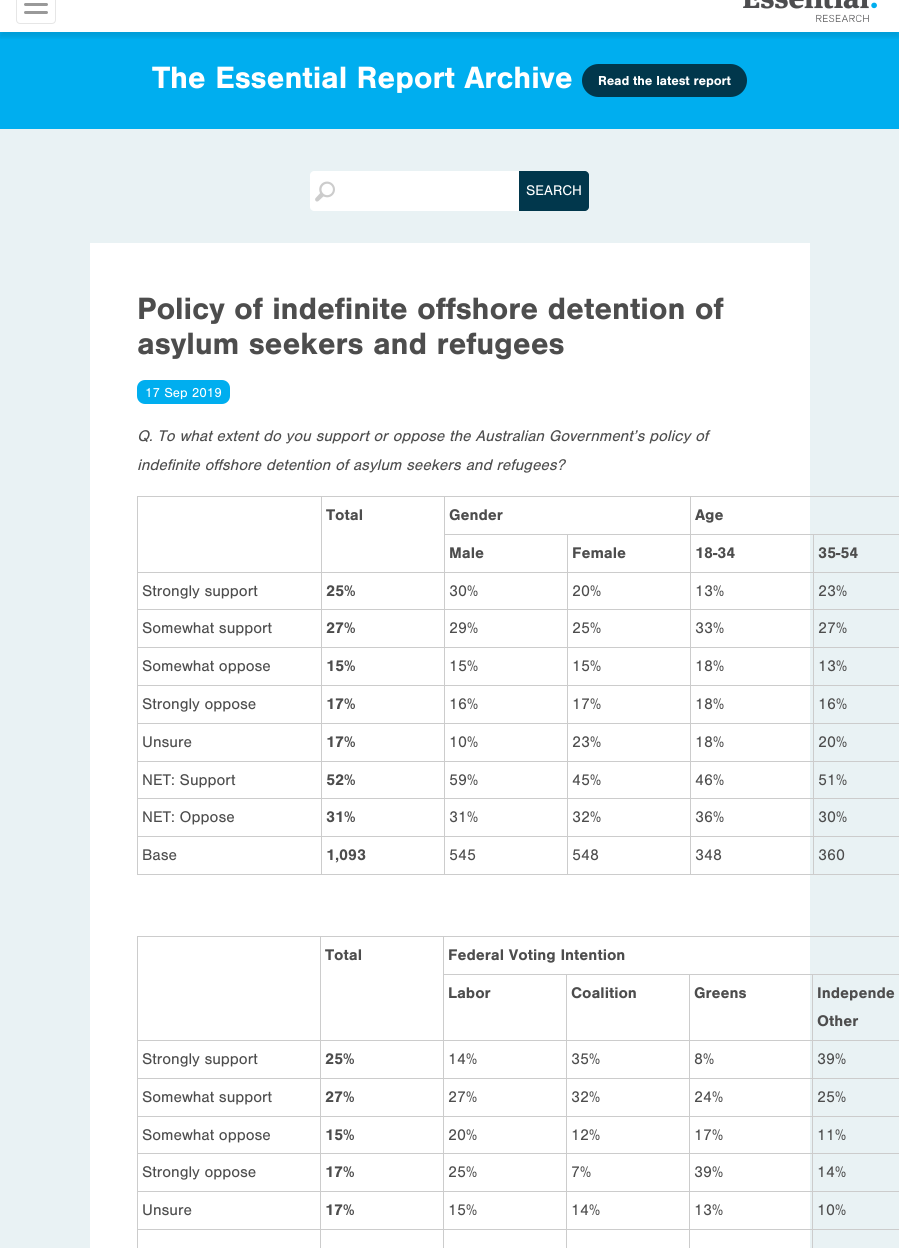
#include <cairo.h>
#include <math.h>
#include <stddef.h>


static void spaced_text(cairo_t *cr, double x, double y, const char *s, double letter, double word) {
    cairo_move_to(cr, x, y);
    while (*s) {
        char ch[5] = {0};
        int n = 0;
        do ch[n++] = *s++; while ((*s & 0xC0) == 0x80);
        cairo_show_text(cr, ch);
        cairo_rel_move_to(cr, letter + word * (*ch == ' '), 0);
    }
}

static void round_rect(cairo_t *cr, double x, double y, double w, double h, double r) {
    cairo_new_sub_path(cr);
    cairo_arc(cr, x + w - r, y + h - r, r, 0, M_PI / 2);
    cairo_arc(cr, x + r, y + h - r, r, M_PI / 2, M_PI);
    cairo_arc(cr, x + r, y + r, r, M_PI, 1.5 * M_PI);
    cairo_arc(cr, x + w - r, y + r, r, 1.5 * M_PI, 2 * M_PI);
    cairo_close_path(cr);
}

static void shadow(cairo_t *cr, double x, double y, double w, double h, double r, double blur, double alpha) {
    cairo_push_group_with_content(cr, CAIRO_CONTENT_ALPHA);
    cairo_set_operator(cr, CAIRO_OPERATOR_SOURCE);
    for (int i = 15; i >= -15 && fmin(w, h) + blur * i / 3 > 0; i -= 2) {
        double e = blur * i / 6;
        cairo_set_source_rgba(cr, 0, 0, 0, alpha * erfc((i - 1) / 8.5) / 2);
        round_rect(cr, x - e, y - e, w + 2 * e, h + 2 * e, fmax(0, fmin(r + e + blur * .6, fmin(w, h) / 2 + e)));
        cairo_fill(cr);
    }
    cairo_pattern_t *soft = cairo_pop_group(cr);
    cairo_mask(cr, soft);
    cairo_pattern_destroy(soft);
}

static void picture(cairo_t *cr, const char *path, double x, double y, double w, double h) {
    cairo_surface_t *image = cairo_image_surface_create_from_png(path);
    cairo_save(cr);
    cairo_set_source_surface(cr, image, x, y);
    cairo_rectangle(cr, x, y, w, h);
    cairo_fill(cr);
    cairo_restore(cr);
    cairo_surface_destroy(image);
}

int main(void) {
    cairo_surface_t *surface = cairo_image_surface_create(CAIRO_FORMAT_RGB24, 899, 1248);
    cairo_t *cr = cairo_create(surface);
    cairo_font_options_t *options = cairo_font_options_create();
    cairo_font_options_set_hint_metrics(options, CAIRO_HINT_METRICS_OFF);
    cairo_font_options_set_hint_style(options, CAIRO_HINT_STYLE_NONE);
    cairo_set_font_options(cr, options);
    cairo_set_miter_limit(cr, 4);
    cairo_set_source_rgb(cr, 1, 1, 1);
    cairo_paint(cr);
    cairo_set_source_rgb(cr, 0, 0.682, 0.937);
    cairo_rectangle(cr, 0, 32, 899, 97);
    cairo_fill(cr);
    cairo_save(cr);
    cairo_rectangle(cr, 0, 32, 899, 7);
    cairo_clip(cr);
    cairo_set_source_rgb(cr, 0, 0, 0);
    shadow(cr, 0, -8, 899, 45, 0, 2.5, 0.1);
    cairo_restore(cr);
    round_rect(cr, 16.5, -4.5, 39, 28, 3.5);
    cairo_set_source_rgb(cr, 0.902, 0.902, 0.902);
    cairo_set_line_width(cr, 1);
    cairo_stroke(cr);
    cairo_set_source_rgb(cr, 0.6, 0.6, 0.6);
    round_rect(cr, 24, 3, 24, 3, 1.5);
    cairo_fill(cr);
    round_rect(cr, 24, 11, 24, 3, 1.5);
    cairo_fill(cr);
    picture(cr, "img1.png", 743, 0, 134, 22);
    cairo_select_font_face(cr, "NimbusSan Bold", CAIRO_FONT_SLANT_NORMAL, CAIRO_FONT_WEIGHT_BOLD);
    cairo_set_font_size(cr, 32);
    cairo_set_source_rgb(cr, 1, 1, 1);
    spaced_text(cr, 152, 88, "The Essential Report Archive", -0.15, 0);
    cairo_set_source_rgb(cr, 0.004, 0.216, 0.298);
    round_rect(cr, 582, 64, 165, 33, 16.5);
    cairo_fill(cr);
    cairo_set_font_size(cr, 13.5);
    cairo_set_source_rgb(cr, 1, 1, 1);
    spaced_text(cr, 598, 85, "Read the latest report", -0.15, 0);
    cairo_set_source_rgb(cr, 0.914, 0.949, 0.957);
    cairo_rectangle(cr, 0, 129, 899, 1119);
    cairo_fill(cr);
    cairo_set_source_rgb(cr, 1, 1, 1);
    cairo_new_path(cr);
    cairo_move_to(cr, 314, 171);
    cairo_line_to(cr, 519, 171);
    cairo_line_to(cr, 519, 211);
    cairo_line_to(cr, 314, 211);
    cairo_curve_to(cr, 312, 211, 310, 209, 310, 207);
    cairo_line_to(cr, 310, 175);
    cairo_curve_to(cr, 310, 173, 312, 171, 314, 171);
    cairo_close_path(cr);
    cairo_fill(cr);
    picture(cr, "img2.png", 315, 181, 20, 21);
    cairo_set_source_rgb(cr, 0.004, 0.216, 0.298);
    cairo_new_path(cr);
    cairo_move_to(cr, 519, 171);
    cairo_line_to(cr, 585, 171);
    cairo_curve_to(cr, 587, 171, 589, 173, 589, 175);
    cairo_line_to(cr, 589, 207);
    cairo_curve_to(cr, 589, 209, 587, 211, 585, 211);
    cairo_line_to(cr, 519, 211);
    cairo_close_path(cr);
    cairo_fill(cr);
    cairo_select_font_face(cr, "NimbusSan", CAIRO_FONT_SLANT_NORMAL, CAIRO_FONT_WEIGHT_NORMAL);
    cairo_set_font_size(cr, 14.5);
    cairo_set_source_rgb(cr, 1, 1, 1);
    cairo_move_to(cr, 526, 195);
    cairo_show_text(cr, "SEARCH");
    cairo_rectangle(cr, 90, 243, 720, 1005);
    cairo_fill(cr);
    cairo_select_font_face(cr, "NimbusSan Bold", CAIRO_FONT_SLANT_NORMAL, CAIRO_FONT_WEIGHT_BOLD);
    cairo_set_font_size(cr, 32);
    cairo_set_source_rgb(cr, 0.302, 0.302, 0.302);
    spaced_text(cr, 137, 319, "Policy of indefinite offshore detention of", -0.15, 0);
    spaced_text(cr, 137, 354, "asylum seekers and refugees", -0.15, 0);
    cairo_set_source_rgb(cr, 0, 0.682, 0.937);
    round_rect(cr, 137, 380, 93, 24, 8);
    cairo_fill(cr);
    cairo_select_font_face(cr, "NimbusSan", CAIRO_FONT_SLANT_NORMAL, CAIRO_FONT_WEIGHT_NORMAL);
    cairo_set_font_size(cr, 13.5);
    cairo_set_source_rgb(cr, 1, 1, 1);
    cairo_move_to(cr, 145, 397);
    cairo_show_text(cr, "17 Sep 2019");
    cairo_select_font_face(cr, "NimbusSan", CAIRO_FONT_SLANT_ITALIC, CAIRO_FONT_WEIGHT_NORMAL);
    cairo_set_font_size(cr, 16);
    cairo_set_source_rgb(cr, 0.302, 0.302, 0.302);
    cairo_move_to(cr, 137, 441);
    cairo_show_text(cr, "Q. To what extent do you support or oppose the Australian Government’s policy of");
    cairo_move_to(cr, 137, 470);
    cairo_show_text(cr, "indefinite offshore detention of asylum seekers and refugees?");
    cairo_set_source_rgb(cr, 0.8, 0.8, 0.8);
    cairo_rectangle(cr, 690, 496, 209, 1);
    cairo_fill(cr);
    cairo_rectangle(cr, 813, 534, 86, 1);
    cairo_fill(cr);
    cairo_rectangle(cr, 813, 572, 86, 1);
    cairo_fill(cr);
    cairo_rectangle(cr, 813, 609, 86, 1);
    cairo_fill(cr);
    cairo_rectangle(cr, 813, 647, 86, 1);
    cairo_fill(cr);
    cairo_rectangle(cr, 813, 685, 86, 1);
    cairo_fill(cr);
    cairo_rectangle(cr, 813, 723, 86, 1);
    cairo_fill(cr);
    cairo_rectangle(cr, 813, 761, 86, 1);
    cairo_fill(cr);
    cairo_rectangle(cr, 813, 798, 86, 1);
    cairo_fill(cr);
    cairo_rectangle(cr, 813, 836, 86, 1);
    cairo_fill(cr);
    cairo_rectangle(cr, 813, 874, 86, 1);
    cairo_fill(cr);
    cairo_rectangle(cr, 813, 836, 1, 39);
    cairo_fill(cr);
    cairo_rectangle(cr, 690, 836, 124, 1);
    cairo_fill(cr);
    cairo_rectangle(cr, 813, 798, 1, 39);
    cairo_fill(cr);
    cairo_rectangle(cr, 690, 798, 124, 1);
    cairo_fill(cr);
    cairo_rectangle(cr, 813, 761, 1, 38);
    cairo_fill(cr);
    cairo_rectangle(cr, 690, 761, 124, 1);
    cairo_fill(cr);
    cairo_rectangle(cr, 813, 723, 1, 39);
    cairo_fill(cr);
    cairo_rectangle(cr, 690, 723, 124, 1);
    cairo_fill(cr);
    cairo_rectangle(cr, 813, 685, 1, 39);
    cairo_fill(cr);
    cairo_rectangle(cr, 690, 685, 124, 1);
    cairo_fill(cr);
    cairo_rectangle(cr, 813, 647, 1, 39);
    cairo_fill(cr);
    cairo_rectangle(cr, 690, 647, 124, 1);
    cairo_fill(cr);
    cairo_rectangle(cr, 813, 609, 1, 39);
    cairo_fill(cr);
    cairo_rectangle(cr, 690, 609, 124, 1);
    cairo_fill(cr);
    cairo_rectangle(cr, 813, 572, 1, 38);
    cairo_fill(cr);
    cairo_rectangle(cr, 690, 572, 124, 1);
    cairo_fill(cr);
    cairo_rectangle(cr, 813, 534, 1, 39);
    cairo_fill(cr);
    cairo_rectangle(cr, 690, 534, 124, 1);
    cairo_fill(cr);
    cairo_rectangle(cr, 690, 874, 124, 1);
    cairo_fill(cr);
    cairo_rectangle(cr, 690, 836, 1, 39);
    cairo_fill(cr);
    cairo_rectangle(cr, 567, 836, 124, 1);
    cairo_fill(cr);
    cairo_rectangle(cr, 690, 798, 1, 39);
    cairo_fill(cr);
    cairo_rectangle(cr, 567, 798, 124, 1);
    cairo_fill(cr);
    cairo_rectangle(cr, 690, 761, 1, 38);
    cairo_fill(cr);
    cairo_rectangle(cr, 567, 761, 124, 1);
    cairo_fill(cr);
    cairo_rectangle(cr, 690, 723, 1, 39);
    cairo_fill(cr);
    cairo_rectangle(cr, 567, 723, 124, 1);
    cairo_fill(cr);
    cairo_rectangle(cr, 690, 685, 1, 39);
    cairo_fill(cr);
    cairo_rectangle(cr, 567, 685, 124, 1);
    cairo_fill(cr);
    cairo_rectangle(cr, 690, 647, 1, 39);
    cairo_fill(cr);
    cairo_rectangle(cr, 567, 647, 124, 1);
    cairo_fill(cr);
    cairo_rectangle(cr, 690, 609, 1, 39);
    cairo_fill(cr);
    cairo_rectangle(cr, 567, 609, 124, 1);
    cairo_fill(cr);
    cairo_rectangle(cr, 690, 572, 1, 38);
    cairo_fill(cr);
    cairo_rectangle(cr, 567, 572, 124, 1);
    cairo_fill(cr);
    cairo_rectangle(cr, 690, 534, 1, 39);
    cairo_fill(cr);
    cairo_rectangle(cr, 567, 534, 124, 1);
    cairo_fill(cr);
    cairo_rectangle(cr, 690, 496, 1, 39);
    cairo_fill(cr);
    cairo_rectangle(cr, 444, 496, 247, 1);
    cairo_fill(cr);
    cairo_rectangle(cr, 567, 874, 124, 1);
    cairo_fill(cr);
    cairo_rectangle(cr, 567, 836, 1, 39);
    cairo_fill(cr);
    cairo_rectangle(cr, 444, 836, 124, 1);
    cairo_fill(cr);
    cairo_rectangle(cr, 567, 798, 1, 39);
    cairo_fill(cr);
    cairo_rectangle(cr, 444, 798, 124, 1);
    cairo_fill(cr);
    cairo_rectangle(cr, 567, 761, 1, 38);
    cairo_fill(cr);
    cairo_rectangle(cr, 444, 761, 124, 1);
    cairo_fill(cr);
    cairo_rectangle(cr, 567, 723, 1, 39);
    cairo_fill(cr);
    cairo_rectangle(cr, 444, 723, 124, 1);
    cairo_fill(cr);
    cairo_rectangle(cr, 567, 685, 1, 39);
    cairo_fill(cr);
    cairo_rectangle(cr, 444, 685, 124, 1);
    cairo_fill(cr);
    cairo_rectangle(cr, 567, 647, 1, 39);
    cairo_fill(cr);
    cairo_rectangle(cr, 444, 647, 124, 1);
    cairo_fill(cr);
    cairo_rectangle(cr, 567, 609, 1, 39);
    cairo_fill(cr);
    cairo_rectangle(cr, 444, 609, 124, 1);
    cairo_fill(cr);
    cairo_rectangle(cr, 567, 572, 1, 38);
    cairo_fill(cr);
    cairo_rectangle(cr, 444, 572, 124, 1);
    cairo_fill(cr);
    cairo_rectangle(cr, 567, 534, 1, 39);
    cairo_fill(cr);
    cairo_rectangle(cr, 444, 534, 124, 1);
    cairo_fill(cr);
    cairo_rectangle(cr, 444, 874, 124, 1);
    cairo_fill(cr);
    cairo_rectangle(cr, 444, 836, 1, 39);
    cairo_fill(cr);
    cairo_rectangle(cr, 321, 836, 124, 1);
    cairo_fill(cr);
    cairo_rectangle(cr, 444, 798, 1, 39);
    cairo_fill(cr);
    cairo_rectangle(cr, 321, 798, 124, 1);
    cairo_fill(cr);
    cairo_rectangle(cr, 444, 761, 1, 38);
    cairo_fill(cr);
    cairo_rectangle(cr, 321, 761, 124, 1);
    cairo_fill(cr);
    cairo_rectangle(cr, 444, 723, 1, 39);
    cairo_fill(cr);
    cairo_rectangle(cr, 321, 723, 124, 1);
    cairo_fill(cr);
    cairo_rectangle(cr, 444, 685, 1, 39);
    cairo_fill(cr);
    cairo_rectangle(cr, 321, 685, 124, 1);
    cairo_fill(cr);
    cairo_rectangle(cr, 444, 647, 1, 39);
    cairo_fill(cr);
    cairo_rectangle(cr, 321, 647, 124, 1);
    cairo_fill(cr);
    cairo_rectangle(cr, 444, 609, 1, 39);
    cairo_fill(cr);
    cairo_rectangle(cr, 321, 609, 124, 1);
    cairo_fill(cr);
    cairo_rectangle(cr, 444, 572, 1, 38);
    cairo_fill(cr);
    cairo_rectangle(cr, 321, 572, 124, 1);
    cairo_fill(cr);
    cairo_rectangle(cr, 444, 534, 1, 39);
    cairo_fill(cr);
    cairo_rectangle(cr, 444, 496, 1, 39);
    cairo_fill(cr);
    cairo_rectangle(cr, 321, 496, 124, 1);
    cairo_fill(cr);
    cairo_rectangle(cr, 321, 874, 124, 1);
    cairo_fill(cr);
    cairo_rectangle(cr, 321, 836, 1, 39);
    cairo_fill(cr);
    cairo_rectangle(cr, 137, 836, 185, 1);
    cairo_fill(cr);
    cairo_rectangle(cr, 321, 798, 1, 39);
    cairo_fill(cr);
    cairo_rectangle(cr, 137, 798, 185, 1);
    cairo_fill(cr);
    cairo_rectangle(cr, 321, 761, 1, 38);
    cairo_fill(cr);
    cairo_rectangle(cr, 137, 761, 185, 1);
    cairo_fill(cr);
    cairo_rectangle(cr, 321, 723, 1, 39);
    cairo_fill(cr);
    cairo_rectangle(cr, 137, 723, 185, 1);
    cairo_fill(cr);
    cairo_rectangle(cr, 321, 685, 1, 39);
    cairo_fill(cr);
    cairo_rectangle(cr, 137, 685, 185, 1);
    cairo_fill(cr);
    cairo_rectangle(cr, 321, 647, 1, 39);
    cairo_fill(cr);
    cairo_rectangle(cr, 137, 647, 185, 1);
    cairo_fill(cr);
    cairo_rectangle(cr, 321, 609, 1, 39);
    cairo_fill(cr);
    cairo_rectangle(cr, 137, 609, 185, 1);
    cairo_fill(cr);
    cairo_rectangle(cr, 321, 572, 1, 38);
    cairo_fill(cr);
    cairo_rectangle(cr, 137, 572, 185, 1);
    cairo_fill(cr);
    cairo_rectangle(cr, 321, 496, 1, 77);
    cairo_fill(cr);
    cairo_rectangle(cr, 137, 496, 185, 1);
    cairo_fill(cr);
    cairo_rectangle(cr, 137, 874, 185, 1);
    cairo_fill(cr);
    cairo_rectangle(cr, 137, 836, 1, 39);
    cairo_fill(cr);
    cairo_rectangle(cr, 137, 798, 1, 39);
    cairo_fill(cr);
    cairo_rectangle(cr, 137, 761, 1, 38);
    cairo_fill(cr);
    cairo_rectangle(cr, 137, 723, 1, 39);
    cairo_fill(cr);
    cairo_rectangle(cr, 137, 685, 1, 39);
    cairo_fill(cr);
    cairo_rectangle(cr, 137, 647, 1, 39);
    cairo_fill(cr);
    cairo_rectangle(cr, 137, 609, 1, 39);
    cairo_fill(cr);
    cairo_rectangle(cr, 137, 572, 1, 38);
    cairo_fill(cr);
    cairo_rectangle(cr, 137, 496, 1, 77);
    cairo_fill(cr);
    cairo_select_font_face(cr, "NimbusSan Bold", CAIRO_FONT_SLANT_NORMAL, CAIRO_FONT_WEIGHT_BOLD);
    cairo_set_source_rgb(cr, 0.302, 0.302, 0.302);
    cairo_move_to(cr, 326, 520);
    cairo_show_text(cr, "Total");
    cairo_move_to(cr, 449, 520);
    cairo_show_text(cr, "Gender");
    cairo_move_to(cr, 695, 520);
    cairo_show_text(cr, "Age");
    cairo_move_to(cr, 449, 558);
    cairo_show_text(cr, "Male");
    cairo_move_to(cr, 572, 558);
    cairo_show_text(cr, "Female");
    cairo_move_to(cr, 695, 558);
    cairo_show_text(cr, "18-34");
    cairo_move_to(cr, 818, 558);
    cairo_show_text(cr, "35-54");
    cairo_select_font_face(cr, "NimbusSan", CAIRO_FONT_SLANT_NORMAL, CAIRO_FONT_WEIGHT_NORMAL);
    cairo_move_to(cr, 142, 596);
    cairo_show_text(cr, "Strongly support");
    cairo_select_font_face(cr, "NimbusSan Bold", CAIRO_FONT_SLANT_NORMAL, CAIRO_FONT_WEIGHT_BOLD);
    cairo_move_to(cr, 326, 596);
    cairo_show_text(cr, "25%");
    cairo_select_font_face(cr, "NimbusSan", CAIRO_FONT_SLANT_NORMAL, CAIRO_FONT_WEIGHT_NORMAL);
    cairo_move_to(cr, 449, 596);
    cairo_show_text(cr, "30%");
    cairo_move_to(cr, 572, 596);
    cairo_show_text(cr, "20%");
    cairo_move_to(cr, 695, 596);
    cairo_show_text(cr, "13%");
    cairo_move_to(cr, 818, 596);
    cairo_show_text(cr, "23%");
    cairo_move_to(cr, 142, 633);
    cairo_show_text(cr, "Somewhat support");
    cairo_select_font_face(cr, "NimbusSan Bold", CAIRO_FONT_SLANT_NORMAL, CAIRO_FONT_WEIGHT_BOLD);
    cairo_move_to(cr, 326, 633);
    cairo_show_text(cr, "27%");
    cairo_select_font_face(cr, "NimbusSan", CAIRO_FONT_SLANT_NORMAL, CAIRO_FONT_WEIGHT_NORMAL);
    cairo_move_to(cr, 449, 633);
    cairo_show_text(cr, "29%");
    cairo_move_to(cr, 572, 633);
    cairo_show_text(cr, "25%");
    cairo_move_to(cr, 695, 633);
    cairo_show_text(cr, "33%");
    cairo_move_to(cr, 818, 633);
    cairo_show_text(cr, "27%");
    cairo_move_to(cr, 142, 671);
    cairo_show_text(cr, "Somewhat oppose");
    cairo_select_font_face(cr, "NimbusSan Bold", CAIRO_FONT_SLANT_NORMAL, CAIRO_FONT_WEIGHT_BOLD);
    cairo_move_to(cr, 326, 671);
    cairo_show_text(cr, "15%");
    cairo_select_font_face(cr, "NimbusSan", CAIRO_FONT_SLANT_NORMAL, CAIRO_FONT_WEIGHT_NORMAL);
    cairo_move_to(cr, 449, 671);
    cairo_show_text(cr, "15%");
    cairo_move_to(cr, 572, 671);
    cairo_show_text(cr, "15%");
    cairo_move_to(cr, 695, 671);
    cairo_show_text(cr, "18%");
    cairo_move_to(cr, 818, 671);
    cairo_show_text(cr, "13%");
    cairo_move_to(cr, 142, 709);
    cairo_show_text(cr, "Strongly oppose");
    cairo_select_font_face(cr, "NimbusSan Bold", CAIRO_FONT_SLANT_NORMAL, CAIRO_FONT_WEIGHT_BOLD);
    cairo_move_to(cr, 326, 709);
    cairo_show_text(cr, "17%");
    cairo_select_font_face(cr, "NimbusSan", CAIRO_FONT_SLANT_NORMAL, CAIRO_FONT_WEIGHT_NORMAL);
    cairo_move_to(cr, 449, 709);
    cairo_show_text(cr, "16%");
    cairo_move_to(cr, 572, 709);
    cairo_show_text(cr, "17%");
    cairo_move_to(cr, 695, 709);
    cairo_show_text(cr, "18%");
    cairo_move_to(cr, 818, 709);
    cairo_show_text(cr, "16%");
    cairo_move_to(cr, 142, 747);
    cairo_show_text(cr, "Unsure");
    cairo_select_font_face(cr, "NimbusSan Bold", CAIRO_FONT_SLANT_NORMAL, CAIRO_FONT_WEIGHT_BOLD);
    cairo_move_to(cr, 326, 747);
    cairo_show_text(cr, "17%");
    cairo_select_font_face(cr, "NimbusSan", CAIRO_FONT_SLANT_NORMAL, CAIRO_FONT_WEIGHT_NORMAL);
    cairo_move_to(cr, 449, 747);
    cairo_show_text(cr, "10%");
    cairo_move_to(cr, 572, 747);
    cairo_show_text(cr, "23%");
    cairo_move_to(cr, 695, 747);
    cairo_show_text(cr, "18%");
    cairo_move_to(cr, 818, 747);
    cairo_show_text(cr, "20%");
    cairo_move_to(cr, 142, 785);
    cairo_show_text(cr, "NET: Support");
    cairo_select_font_face(cr, "NimbusSan Bold", CAIRO_FONT_SLANT_NORMAL, CAIRO_FONT_WEIGHT_BOLD);
    cairo_move_to(cr, 326, 785);
    cairo_show_text(cr, "52%");
    cairo_select_font_face(cr, "NimbusSan", CAIRO_FONT_SLANT_NORMAL, CAIRO_FONT_WEIGHT_NORMAL);
    cairo_move_to(cr, 449, 785);
    cairo_show_text(cr, "59%");
    cairo_move_to(cr, 572, 785);
    cairo_show_text(cr, "45%");
    cairo_move_to(cr, 695, 785);
    cairo_show_text(cr, "46%");
    cairo_move_to(cr, 818, 785);
    cairo_show_text(cr, "51%");
    cairo_move_to(cr, 142, 822);
    cairo_show_text(cr, "NET: Oppose");
    cairo_select_font_face(cr, "NimbusSan Bold", CAIRO_FONT_SLANT_NORMAL, CAIRO_FONT_WEIGHT_BOLD);
    cairo_move_to(cr, 326, 822);
    cairo_show_text(cr, "31%");
    cairo_select_font_face(cr, "NimbusSan", CAIRO_FONT_SLANT_NORMAL, CAIRO_FONT_WEIGHT_NORMAL);
    cairo_move_to(cr, 449, 822);
    cairo_show_text(cr, "31%");
    cairo_move_to(cr, 572, 822);
    cairo_show_text(cr, "32%");
    cairo_move_to(cr, 695, 822);
    cairo_show_text(cr, "36%");
    cairo_move_to(cr, 818, 822);
    cairo_show_text(cr, "30%");
    cairo_move_to(cr, 142, 860);
    cairo_show_text(cr, "Base");
    cairo_select_font_face(cr, "NimbusSan Bold", CAIRO_FONT_SLANT_NORMAL, CAIRO_FONT_WEIGHT_BOLD);
    cairo_move_to(cr, 326, 860);
    cairo_show_text(cr, "1,093");
    cairo_select_font_face(cr, "NimbusSan", CAIRO_FONT_SLANT_NORMAL, CAIRO_FONT_WEIGHT_NORMAL);
    cairo_move_to(cr, 449, 860);
    cairo_show_text(cr, "545");
    cairo_move_to(cr, 572, 860);
    cairo_show_text(cr, "548");
    cairo_move_to(cr, 695, 860);
    cairo_show_text(cr, "348");
    cairo_move_to(cr, 818, 860);
    cairo_show_text(cr, "360");
    cairo_set_source_rgb(cr, 0.8, 0.8, 0.8);
    cairo_rectangle(cr, 443, 936, 456, 1);
    cairo_fill(cr);
    cairo_rectangle(cr, 812, 974, 87, 1);
    cairo_fill(cr);
    cairo_rectangle(cr, 812, 1040, 87, 1);
    cairo_fill(cr);
    cairo_rectangle(cr, 812, 1078, 87, 1);
    cairo_fill(cr);
    cairo_rectangle(cr, 812, 1116, 87, 1);
    cairo_fill(cr);
    cairo_rectangle(cr, 812, 1153, 87, 1);
    cairo_fill(cr);
    cairo_rectangle(cr, 812, 1191, 87, 1);
    cairo_fill(cr);
    cairo_rectangle(cr, 812, 1229, 87, 1);
    cairo_fill(cr);
    cairo_rectangle(cr, 812, 1229, 1, 19);
    cairo_fill(cr);
    cairo_rectangle(cr, 689, 1229, 124, 1);
    cairo_fill(cr);
    cairo_rectangle(cr, 812, 1191, 1, 39);
    cairo_fill(cr);
    cairo_rectangle(cr, 689, 1191, 124, 1);
    cairo_fill(cr);
    cairo_rectangle(cr, 812, 1153, 1, 39);
    cairo_fill(cr);
    cairo_rectangle(cr, 689, 1153, 124, 1);
    cairo_fill(cr);
    cairo_rectangle(cr, 812, 1116, 1, 38);
    cairo_fill(cr);
    cairo_rectangle(cr, 689, 1116, 124, 1);
    cairo_fill(cr);
    cairo_rectangle(cr, 812, 1078, 1, 39);
    cairo_fill(cr);
    cairo_rectangle(cr, 689, 1078, 124, 1);
    cairo_fill(cr);
    cairo_rectangle(cr, 812, 1040, 1, 39);
    cairo_fill(cr);
    cairo_rectangle(cr, 689, 1040, 124, 1);
    cairo_fill(cr);
    cairo_rectangle(cr, 812, 974, 1, 67);
    cairo_fill(cr);
    cairo_rectangle(cr, 689, 974, 124, 1);
    cairo_fill(cr);
    cairo_rectangle(cr, 689, 1229, 1, 19);
    cairo_fill(cr);
    cairo_rectangle(cr, 566, 1229, 124, 1);
    cairo_fill(cr);
    cairo_rectangle(cr, 689, 1191, 1, 39);
    cairo_fill(cr);
    cairo_rectangle(cr, 566, 1191, 124, 1);
    cairo_fill(cr);
    cairo_rectangle(cr, 689, 1153, 1, 39);
    cairo_fill(cr);
    cairo_rectangle(cr, 566, 1153, 124, 1);
    cairo_fill(cr);
    cairo_rectangle(cr, 689, 1116, 1, 38);
    cairo_fill(cr);
    cairo_rectangle(cr, 566, 1116, 124, 1);
    cairo_fill(cr);
    cairo_rectangle(cr, 689, 1078, 1, 39);
    cairo_fill(cr);
    cairo_rectangle(cr, 566, 1078, 124, 1);
    cairo_fill(cr);
    cairo_rectangle(cr, 689, 1040, 1, 39);
    cairo_fill(cr);
    cairo_rectangle(cr, 566, 1040, 124, 1);
    cairo_fill(cr);
    cairo_rectangle(cr, 689, 974, 1, 67);
    cairo_fill(cr);
    cairo_rectangle(cr, 566, 974, 124, 1);
    cairo_fill(cr);
    cairo_rectangle(cr, 566, 1229, 1, 19);
    cairo_fill(cr);
    cairo_rectangle(cr, 443, 1229, 124, 1);
    cairo_fill(cr);
    cairo_rectangle(cr, 566, 1191, 1, 39);
    cairo_fill(cr);
    cairo_rectangle(cr, 443, 1191, 124, 1);
    cairo_fill(cr);
    cairo_rectangle(cr, 566, 1153, 1, 39);
    cairo_fill(cr);
    cairo_rectangle(cr, 443, 1153, 124, 1);
    cairo_fill(cr);
    cairo_rectangle(cr, 566, 1116, 1, 38);
    cairo_fill(cr);
    cairo_rectangle(cr, 443, 1116, 124, 1);
    cairo_fill(cr);
    cairo_rectangle(cr, 566, 1078, 1, 39);
    cairo_fill(cr);
    cairo_rectangle(cr, 443, 1078, 124, 1);
    cairo_fill(cr);
    cairo_rectangle(cr, 566, 1040, 1, 39);
    cairo_fill(cr);
    cairo_rectangle(cr, 443, 1040, 124, 1);
    cairo_fill(cr);
    cairo_rectangle(cr, 566, 974, 1, 67);
    cairo_fill(cr);
    cairo_rectangle(cr, 443, 974, 124, 1);
    cairo_fill(cr);
    cairo_rectangle(cr, 443, 1229, 1, 19);
    cairo_fill(cr);
    cairo_rectangle(cr, 320, 1229, 124, 1);
    cairo_fill(cr);
    cairo_rectangle(cr, 443, 1191, 1, 39);
    cairo_fill(cr);
    cairo_rectangle(cr, 320, 1191, 124, 1);
    cairo_fill(cr);
    cairo_rectangle(cr, 443, 1153, 1, 39);
    cairo_fill(cr);
    cairo_rectangle(cr, 320, 1153, 124, 1);
    cairo_fill(cr);
    cairo_rectangle(cr, 443, 1116, 1, 38);
    cairo_fill(cr);
    cairo_rectangle(cr, 320, 1116, 124, 1);
    cairo_fill(cr);
    cairo_rectangle(cr, 443, 1078, 1, 39);
    cairo_fill(cr);
    cairo_rectangle(cr, 320, 1078, 124, 1);
    cairo_fill(cr);
    cairo_rectangle(cr, 443, 1040, 1, 39);
    cairo_fill(cr);
    cairo_rectangle(cr, 320, 1040, 124, 1);
    cairo_fill(cr);
    cairo_rectangle(cr, 443, 974, 1, 67);
    cairo_fill(cr);
    cairo_rectangle(cr, 443, 936, 1, 39);
    cairo_fill(cr);
    cairo_rectangle(cr, 320, 936, 124, 1);
    cairo_fill(cr);
    cairo_rectangle(cr, 320, 1229, 1, 19);
    cairo_fill(cr);
    cairo_rectangle(cr, 137, 1229, 184, 1);
    cairo_fill(cr);
    cairo_rectangle(cr, 320, 1191, 1, 39);
    cairo_fill(cr);
    cairo_rectangle(cr, 137, 1191, 184, 1);
    cairo_fill(cr);
    cairo_rectangle(cr, 320, 1153, 1, 39);
    cairo_fill(cr);
    cairo_rectangle(cr, 137, 1153, 184, 1);
    cairo_fill(cr);
    cairo_rectangle(cr, 320, 1116, 1, 38);
    cairo_fill(cr);
    cairo_rectangle(cr, 137, 1116, 184, 1);
    cairo_fill(cr);
    cairo_rectangle(cr, 320, 1078, 1, 39);
    cairo_fill(cr);
    cairo_rectangle(cr, 137, 1078, 184, 1);
    cairo_fill(cr);
    cairo_rectangle(cr, 320, 1040, 1, 39);
    cairo_fill(cr);
    cairo_rectangle(cr, 137, 1040, 184, 1);
    cairo_fill(cr);
    cairo_rectangle(cr, 320, 936, 1, 105);
    cairo_fill(cr);
    cairo_rectangle(cr, 137, 936, 184, 1);
    cairo_fill(cr);
    cairo_rectangle(cr, 137, 1229, 1, 19);
    cairo_fill(cr);
    cairo_rectangle(cr, 137, 1191, 1, 39);
    cairo_fill(cr);
    cairo_rectangle(cr, 137, 1153, 1, 39);
    cairo_fill(cr);
    cairo_rectangle(cr, 137, 1116, 1, 38);
    cairo_fill(cr);
    cairo_rectangle(cr, 137, 1078, 1, 39);
    cairo_fill(cr);
    cairo_rectangle(cr, 137, 1040, 1, 39);
    cairo_fill(cr);
    cairo_rectangle(cr, 137, 936, 1, 105);
    cairo_fill(cr);
    cairo_select_font_face(cr, "NimbusSan Bold", CAIRO_FONT_SLANT_NORMAL, CAIRO_FONT_WEIGHT_BOLD);
    cairo_set_source_rgb(cr, 0.302, 0.302, 0.302);
    cairo_move_to(cr, 325, 960);
    cairo_show_text(cr, "Total");
    cairo_move_to(cr, 448, 960);
    cairo_show_text(cr, "Federal Voting Intention");
    cairo_move_to(cr, 448, 998);
    cairo_show_text(cr, "Labor");
    cairo_move_to(cr, 571, 998);
    cairo_show_text(cr, "Coalition");
    cairo_move_to(cr, 694, 998);
    cairo_show_text(cr, "Greens");
    cairo_move_to(cr, 817, 998);
    cairo_show_text(cr, "Independe");
    cairo_move_to(cr, 817, 1026);
    cairo_show_text(cr, "Other");
    cairo_select_font_face(cr, "NimbusSan", CAIRO_FONT_SLANT_NORMAL, CAIRO_FONT_WEIGHT_NORMAL);
    cairo_move_to(cr, 142, 1064);
    cairo_show_text(cr, "Strongly support");
    cairo_select_font_face(cr, "NimbusSan Bold", CAIRO_FONT_SLANT_NORMAL, CAIRO_FONT_WEIGHT_BOLD);
    cairo_move_to(cr, 325, 1064);
    cairo_show_text(cr, "25%");
    cairo_select_font_face(cr, "NimbusSan", CAIRO_FONT_SLANT_NORMAL, CAIRO_FONT_WEIGHT_NORMAL);
    cairo_move_to(cr, 448, 1064);
    cairo_show_text(cr, "14%");
    cairo_move_to(cr, 571, 1064);
    cairo_show_text(cr, "35%");
    cairo_move_to(cr, 694, 1064);
    cairo_show_text(cr, "8%");
    cairo_move_to(cr, 817, 1064);
    cairo_show_text(cr, "39%");
    cairo_move_to(cr, 142, 1102);
    cairo_show_text(cr, "Somewhat support");
    cairo_select_font_face(cr, "NimbusSan Bold", CAIRO_FONT_SLANT_NORMAL, CAIRO_FONT_WEIGHT_BOLD);
    cairo_move_to(cr, 325, 1102);
    cairo_show_text(cr, "27%");
    cairo_select_font_face(cr, "NimbusSan", CAIRO_FONT_SLANT_NORMAL, CAIRO_FONT_WEIGHT_NORMAL);
    cairo_move_to(cr, 448, 1102);
    cairo_show_text(cr, "27%");
    cairo_move_to(cr, 571, 1102);
    cairo_show_text(cr, "32%");
    cairo_move_to(cr, 694, 1102);
    cairo_show_text(cr, "24%");
    cairo_move_to(cr, 817, 1102);
    cairo_show_text(cr, "25%");
    cairo_move_to(cr, 142, 1140);
    cairo_show_text(cr, "Somewhat oppose");
    cairo_select_font_face(cr, "NimbusSan Bold", CAIRO_FONT_SLANT_NORMAL, CAIRO_FONT_WEIGHT_BOLD);
    cairo_move_to(cr, 325, 1140);
    cairo_show_text(cr, "15%");
    cairo_select_font_face(cr, "NimbusSan", CAIRO_FONT_SLANT_NORMAL, CAIRO_FONT_WEIGHT_NORMAL);
    cairo_move_to(cr, 448, 1140);
    cairo_show_text(cr, "20%");
    cairo_move_to(cr, 571, 1140);
    cairo_show_text(cr, "12%");
    cairo_move_to(cr, 694, 1140);
    cairo_show_text(cr, "17%");
    cairo_move_to(cr, 817, 1140);
    cairo_show_text(cr, "11%");
    cairo_move_to(cr, 142, 1177);
    cairo_show_text(cr, "Strongly oppose");
    cairo_select_font_face(cr, "NimbusSan Bold", CAIRO_FONT_SLANT_NORMAL, CAIRO_FONT_WEIGHT_BOLD);
    cairo_move_to(cr, 325, 1177);
    cairo_show_text(cr, "17%");
    cairo_select_font_face(cr, "NimbusSan", CAIRO_FONT_SLANT_NORMAL, CAIRO_FONT_WEIGHT_NORMAL);
    cairo_move_to(cr, 448, 1177);
    cairo_show_text(cr, "25%");
    cairo_move_to(cr, 571, 1177);
    cairo_show_text(cr, "7%");
    cairo_move_to(cr, 694, 1177);
    cairo_show_text(cr, "39%");
    cairo_move_to(cr, 817, 1177);
    cairo_show_text(cr, "14%");
    cairo_move_to(cr, 142, 1215);
    cairo_show_text(cr, "Unsure");
    cairo_select_font_face(cr, "NimbusSan Bold", CAIRO_FONT_SLANT_NORMAL, CAIRO_FONT_WEIGHT_BOLD);
    cairo_move_to(cr, 325, 1215);
    cairo_show_text(cr, "17%");
    cairo_select_font_face(cr, "NimbusSan", CAIRO_FONT_SLANT_NORMAL, CAIRO_FONT_WEIGHT_NORMAL);
    cairo_move_to(cr, 448, 1215);
    cairo_show_text(cr, "15%");
    cairo_move_to(cr, 571, 1215);
    cairo_show_text(cr, "14%");
    cairo_move_to(cr, 694, 1215);
    cairo_show_text(cr, "13%");
    cairo_move_to(cr, 817, 1215);
    cairo_show_text(cr, "10%");
    cairo_surface_write_to_png(surface, "page.png");
    cairo_font_options_destroy(options);
    cairo_destroy(cr);
    cairo_surface_destroy(surface);
    return 0;
}
